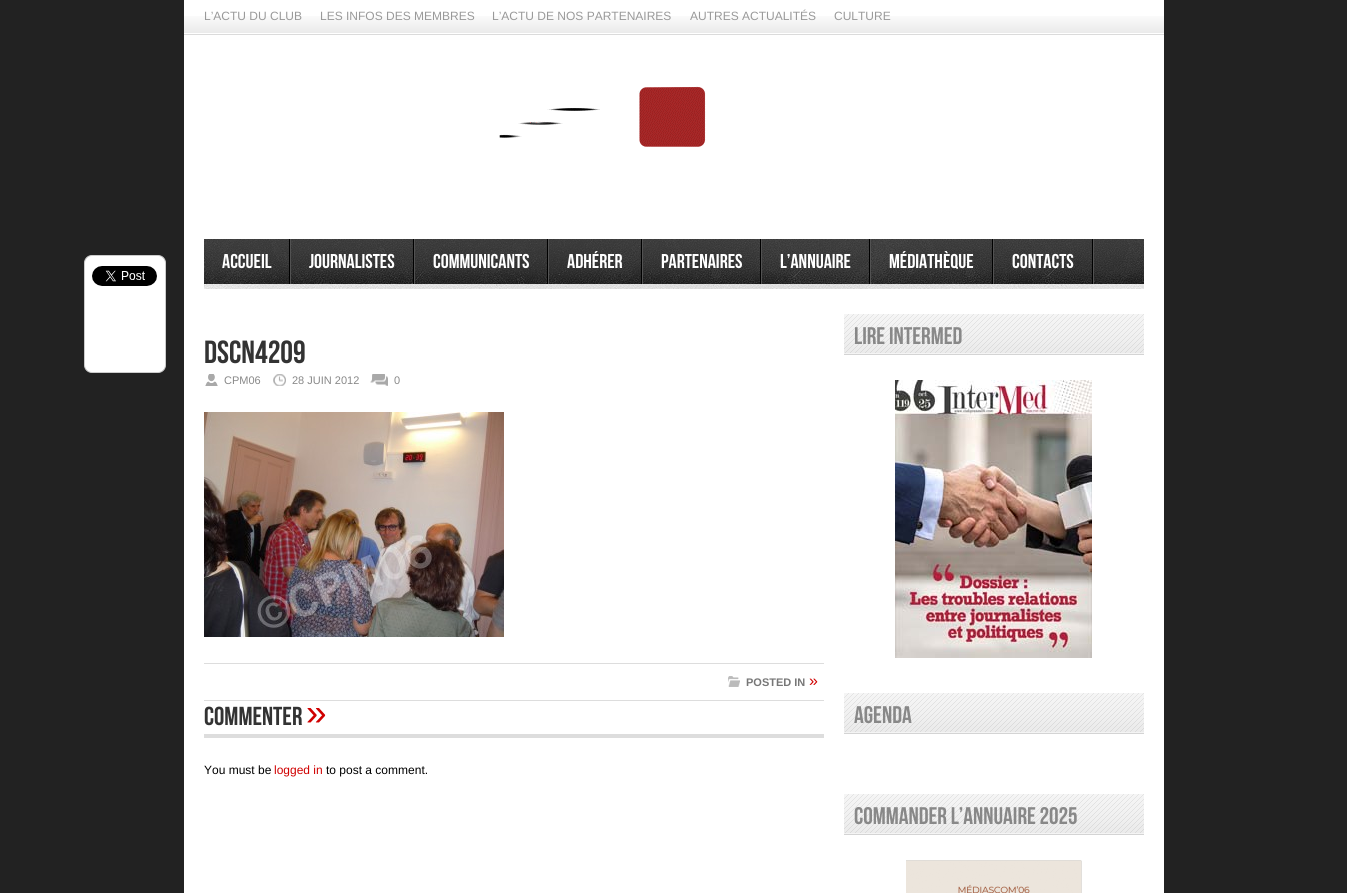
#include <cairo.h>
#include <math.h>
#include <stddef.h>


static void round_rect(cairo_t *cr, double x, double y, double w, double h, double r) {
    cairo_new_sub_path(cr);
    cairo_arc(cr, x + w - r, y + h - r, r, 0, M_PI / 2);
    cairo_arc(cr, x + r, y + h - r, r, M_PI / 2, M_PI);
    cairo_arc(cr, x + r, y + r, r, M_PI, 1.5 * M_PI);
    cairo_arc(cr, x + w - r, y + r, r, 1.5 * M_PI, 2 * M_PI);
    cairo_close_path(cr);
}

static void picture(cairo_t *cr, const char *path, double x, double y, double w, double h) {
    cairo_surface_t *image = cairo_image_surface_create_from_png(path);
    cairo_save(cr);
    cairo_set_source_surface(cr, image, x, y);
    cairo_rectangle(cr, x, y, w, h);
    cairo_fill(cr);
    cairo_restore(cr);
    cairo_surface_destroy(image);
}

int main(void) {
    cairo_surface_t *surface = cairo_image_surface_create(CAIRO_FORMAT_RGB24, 1347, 893);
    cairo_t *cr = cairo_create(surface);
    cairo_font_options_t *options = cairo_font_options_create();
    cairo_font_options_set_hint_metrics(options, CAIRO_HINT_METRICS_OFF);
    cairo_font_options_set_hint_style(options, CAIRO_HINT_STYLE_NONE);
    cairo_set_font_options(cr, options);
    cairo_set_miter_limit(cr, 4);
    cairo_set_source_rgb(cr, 0.133, 0.133, 0.133);
    cairo_paint(cr);
    cairo_set_source_rgb(cr, 1, 1, 1);
    cairo_rectangle(cr, 184, 0, 980, 893);
    cairo_fill(cr);
    picture(cr, "img1.png", 184, 16, 980, 19);
    cairo_select_font_face(cr, "Liberation Sans", CAIRO_FONT_SLANT_NORMAL, CAIRO_FONT_WEIGHT_NORMAL);
    cairo_set_font_size(cr, 12);
    cairo_set_source_rgb(cr, 0.6, 0.6, 0.6);
    cairo_move_to(cr, 204, 20);
    cairo_show_text(cr, "L’ACTU DU CLUB");
    cairo_move_to(cr, 320, 20);
    cairo_show_text(cr, "LES INFOS DES MEMBRES");
    cairo_move_to(cr, 492, 20);
    cairo_show_text(cr, "L’ACTU DE NOS PARTENAIRES");
    cairo_move_to(cr, 690, 20);
    cairo_show_text(cr, "AUTRES ACTUALITÉS");
    cairo_move_to(cr, 834, 20);
    cairo_show_text(cr, "CULTURE");
    picture(cr, "img2.png", 499, 86, 207, 61);
    picture(cr, "img3.png", 204, 239, 940, 50);
    picture(cr, "img4.png", 289, 239, 2, 45);
    cairo_select_font_face(cr, "Bebas Neue", CAIRO_FONT_SLANT_NORMAL, CAIRO_FONT_WEIGHT_NORMAL);
    cairo_set_font_size(cr, 20);
    cairo_set_source_rgb(cr, 1, 1, 1);
    cairo_move_to(cr, 222, 268);
    cairo_show_text(cr, "Accueil");
    picture(cr, "img4.png", 413, 239, 2, 45);
    cairo_move_to(cr, 309, 268);
    cairo_show_text(cr, "Journalistes");
    picture(cr, "img4.png", 547, 239, 2, 45);
    cairo_move_to(cr, 433, 268);
    cairo_show_text(cr, "Communicants");
    picture(cr, "img4.png", 641, 239, 2, 45);
    cairo_move_to(cr, 567, 268);
    cairo_show_text(cr, "Adhérer");
    picture(cr, "img4.png", 760, 239, 2, 45);
    cairo_move_to(cr, 661, 268);
    cairo_show_text(cr, "Partenaires");
    picture(cr, "img4.png", 869, 239, 2, 45);
    cairo_move_to(cr, 780, 268);
    cairo_show_text(cr, "L’annuaire");
    picture(cr, "img4.png", 992, 239, 2, 45);
    cairo_move_to(cr, 889, 268);
    cairo_show_text(cr, "Médiathèque");
    picture(cr, "img4.png", 1092, 239, 2, 45);
    cairo_move_to(cr, 1012, 268);
    cairo_show_text(cr, "Contacts");
    round_rect(cr, 84.5, 255.5, 81, 117, 7.5);
    cairo_fill_preserve(cr);
    cairo_set_source_rgb(cr, 0.8, 0.8, 0.8);
    cairo_set_line_width(cr, 1);
    cairo_stroke(cr);
    picture(cr, "img5.png", 92, 266, 65, 20);
    cairo_set_font_size(cr, 32);
    cairo_set_source_rgb(cr, 0.2, 0.2, 0.2);
    cairo_move_to(cr, 204, 363);
    cairo_show_text(cr, "DSCN4209");
    picture(cr, "img6.png", 205, 374, 13, 12);
    cairo_select_font_face(cr, "Liberation Sans", CAIRO_FONT_SLANT_NORMAL, CAIRO_FONT_WEIGHT_NORMAL);
    cairo_set_font_size(cr, 11);
    cairo_set_source_rgb(cr, 0.533, 0.533, 0.533);
    cairo_move_to(cr, 224, 384);
    cairo_show_text(cr, "CPM06");
    picture(cr, "img7.png", 273, 374, 13, 12);
    cairo_move_to(cr, 292, 384);
    cairo_show_text(cr, "28 JUIN 2012");
    picture(cr, "img8.png", 370, 374, 18, 12);
    cairo_move_to(cr, 394, 384);
    cairo_show_text(cr, "0");
    picture(cr, "img9.png", 204, 412, 300, 225);
    cairo_set_source_rgb(cr, 0.867, 0.867, 0.867);
    cairo_rectangle(cr, 204, 663, 620, 1);
    cairo_fill(cr);
    cairo_rectangle(cr, 204, 700, 620, 1);
    cairo_fill(cr);
    picture(cr, "img10.png", 728, 676, 12, 11);
    cairo_select_font_face(cr, "Liberation Sans", CAIRO_FONT_SLANT_NORMAL, CAIRO_FONT_WEIGHT_BOLD);
    cairo_set_source_rgb(cr, 0.467, 0.467, 0.467);
    cairo_move_to(cr, 746, 686);
    cairo_show_text(cr, "POSTED IN");
    cairo_select_font_face(cr, "Liberation Sans", CAIRO_FONT_SLANT_NORMAL, CAIRO_FONT_WEIGHT_NORMAL);
    cairo_set_font_size(cr, 16);
    cairo_set_source_rgb(cr, 0.816, 0, 0);
    cairo_move_to(cr, 809, 686);
    cairo_show_text(cr, "»");
    cairo_set_source_rgb(cr, 0.867, 0.867, 0.867);
    cairo_rectangle(cr, 204, 734, 620, 4);
    cairo_fill(cr);
    cairo_select_font_face(cr, "Bebas Neue", CAIRO_FONT_SLANT_NORMAL, CAIRO_FONT_WEIGHT_NORMAL);
    cairo_set_font_size(cr, 26);
    cairo_set_source_rgb(cr, 0.2, 0.2, 0.2);
    cairo_move_to(cr, 204, 725);
    cairo_show_text(cr, "Commenter");
    cairo_select_font_face(cr, "Liberation Sans", CAIRO_FONT_SLANT_NORMAL, CAIRO_FONT_WEIGHT_NORMAL);
    cairo_set_font_size(cr, 37);
    cairo_set_source_rgb(cr, 0.816, 0, 0);
    cairo_move_to(cr, 306, 725);
    cairo_show_text(cr, "»");
    cairo_set_font_size(cr, 12);
    cairo_set_source_rgb(cr, 0, 0, 0);
    cairo_move_to(cr, 204, 774);
    cairo_show_text(cr, "You must be");
    cairo_set_source_rgb(cr, 0.816, 0, 0);
    cairo_move_to(cr, 274, 774);
    cairo_show_text(cr, "logged in");
    cairo_set_source_rgb(cr, 0, 0, 0);
    cairo_move_to(cr, 326, 774);
    cairo_show_text(cr, "to post a comment.");
    picture(cr, "img11.png", 844, 314, 300, 41);
    cairo_select_font_face(cr, "Bebas Neue", CAIRO_FONT_SLANT_NORMAL, CAIRO_FONT_WEIGHT_NORMAL);
    cairo_set_font_size(cr, 24);
    cairo_set_source_rgb(cr, 0.533, 0.533, 0.533);
    cairo_move_to(cr, 854, 344);
    cairo_show_text(cr, "Lire Intermed");
    picture(cr, "img12.png", 895, 380, 197, 278);
    picture(cr, "img11.png", 844, 693, 300, 41);
    cairo_move_to(cr, 854, 723);
    cairo_show_text(cr, "AGENDA");
    picture(cr, "img11.png", 844, 794, 300, 41);
    cairo_move_to(cr, 854, 824);
    cairo_show_text(cr, "Commander l’annuaire 2025");
    picture(cr, "img13.png", 906, 860, 176, 33);
    cairo_surface_write_to_png(surface, "page.png");
    cairo_font_options_destroy(options);
    cairo_destroy(cr);
    cairo_surface_destroy(surface);
    return 0;
}
